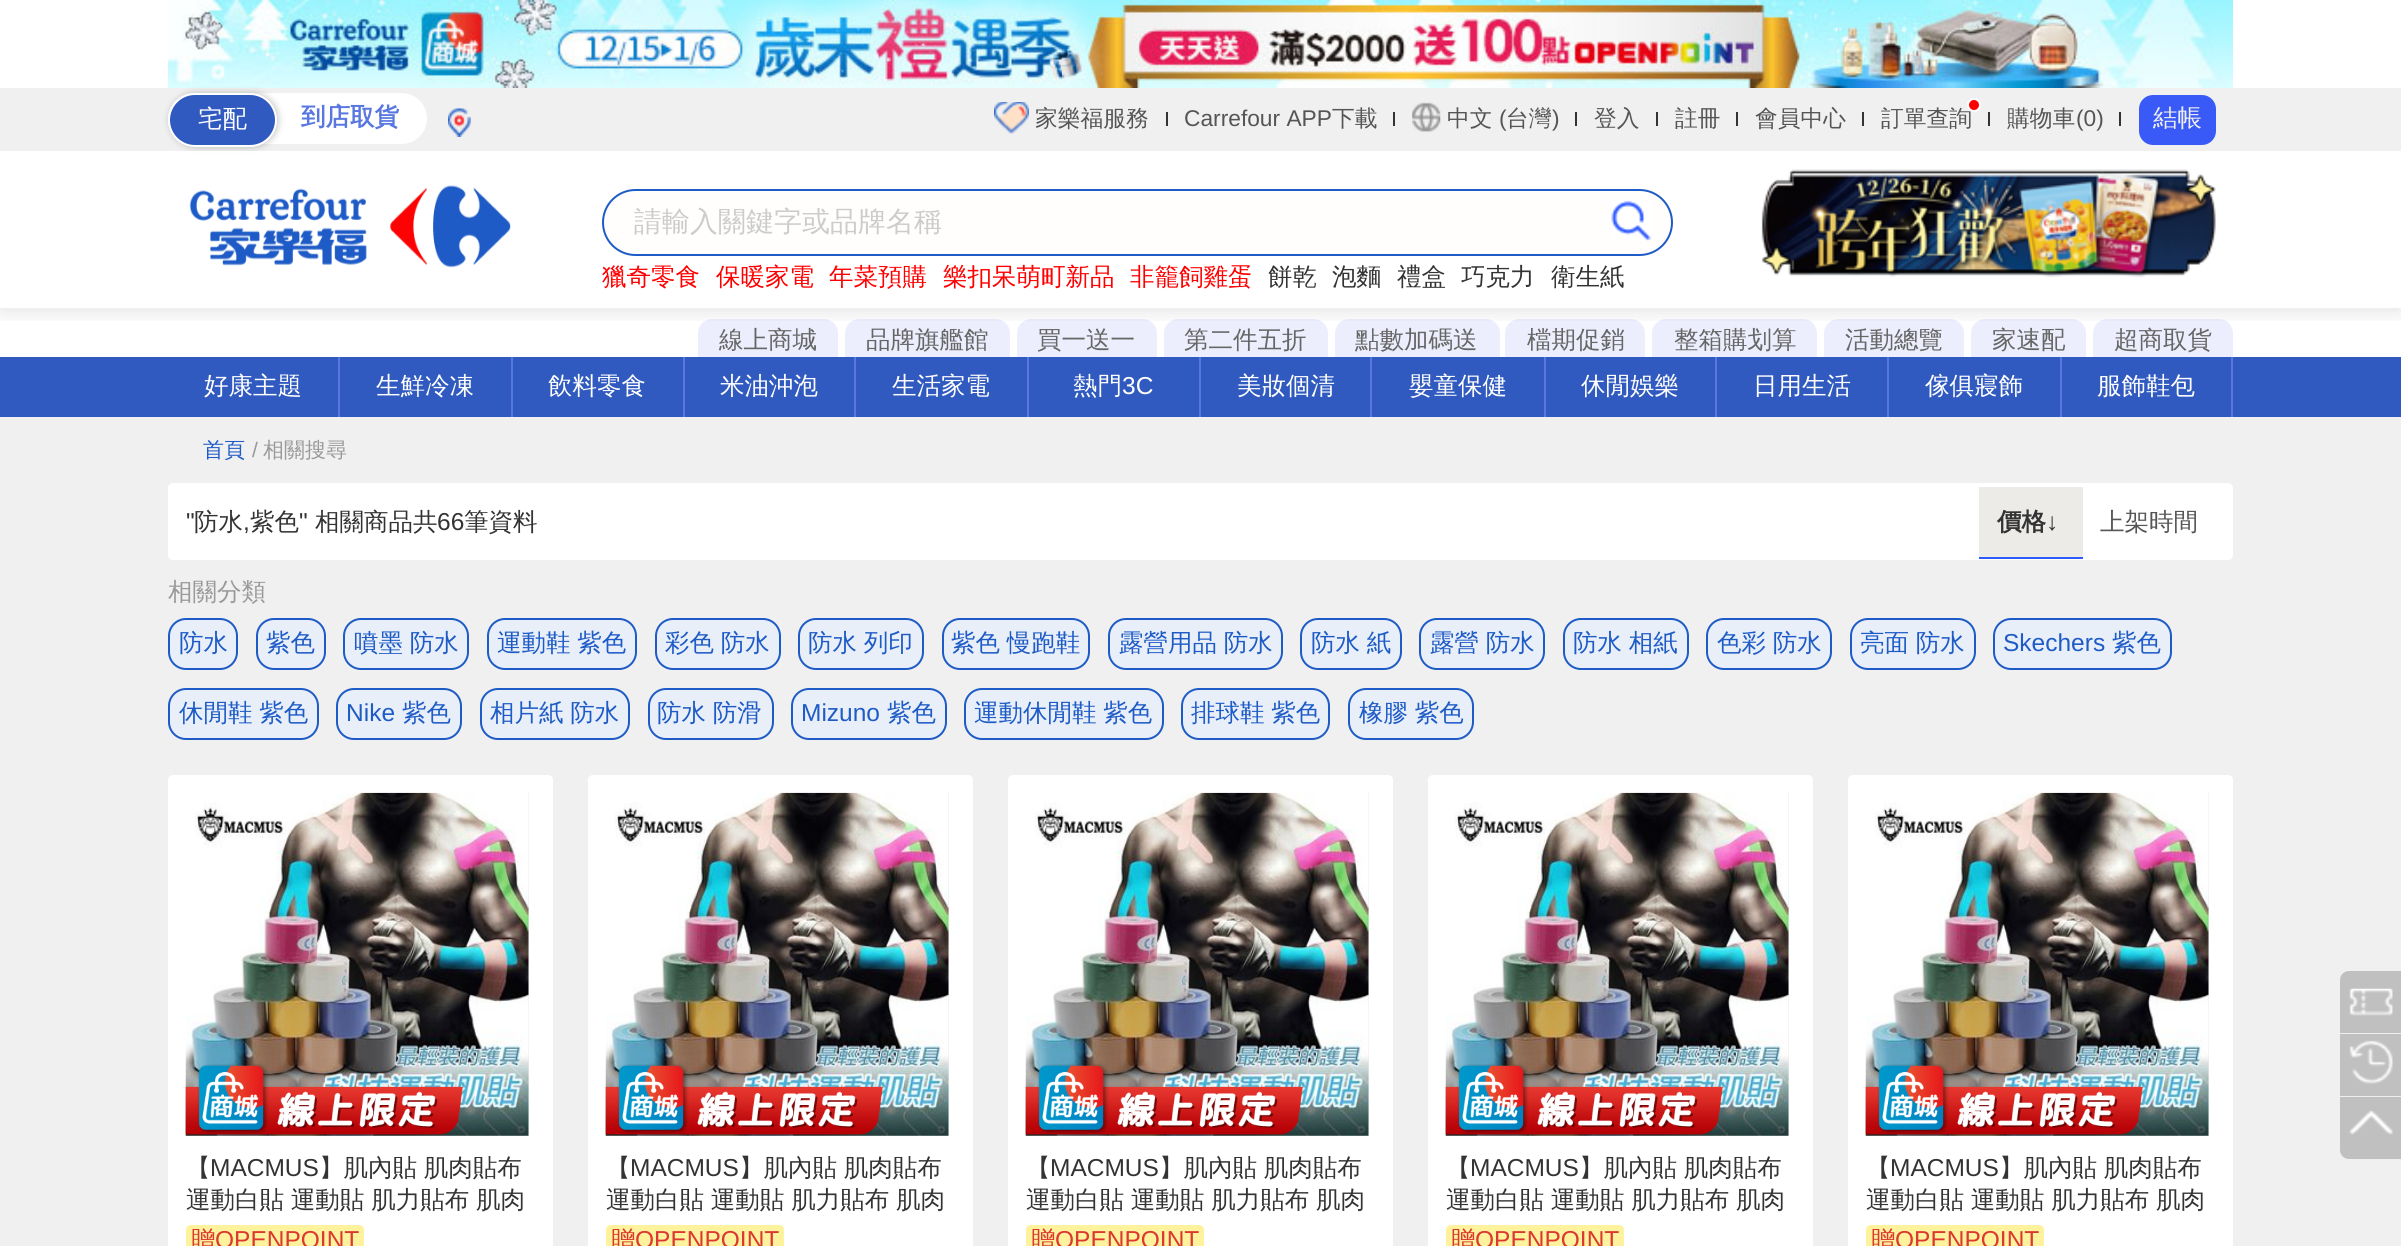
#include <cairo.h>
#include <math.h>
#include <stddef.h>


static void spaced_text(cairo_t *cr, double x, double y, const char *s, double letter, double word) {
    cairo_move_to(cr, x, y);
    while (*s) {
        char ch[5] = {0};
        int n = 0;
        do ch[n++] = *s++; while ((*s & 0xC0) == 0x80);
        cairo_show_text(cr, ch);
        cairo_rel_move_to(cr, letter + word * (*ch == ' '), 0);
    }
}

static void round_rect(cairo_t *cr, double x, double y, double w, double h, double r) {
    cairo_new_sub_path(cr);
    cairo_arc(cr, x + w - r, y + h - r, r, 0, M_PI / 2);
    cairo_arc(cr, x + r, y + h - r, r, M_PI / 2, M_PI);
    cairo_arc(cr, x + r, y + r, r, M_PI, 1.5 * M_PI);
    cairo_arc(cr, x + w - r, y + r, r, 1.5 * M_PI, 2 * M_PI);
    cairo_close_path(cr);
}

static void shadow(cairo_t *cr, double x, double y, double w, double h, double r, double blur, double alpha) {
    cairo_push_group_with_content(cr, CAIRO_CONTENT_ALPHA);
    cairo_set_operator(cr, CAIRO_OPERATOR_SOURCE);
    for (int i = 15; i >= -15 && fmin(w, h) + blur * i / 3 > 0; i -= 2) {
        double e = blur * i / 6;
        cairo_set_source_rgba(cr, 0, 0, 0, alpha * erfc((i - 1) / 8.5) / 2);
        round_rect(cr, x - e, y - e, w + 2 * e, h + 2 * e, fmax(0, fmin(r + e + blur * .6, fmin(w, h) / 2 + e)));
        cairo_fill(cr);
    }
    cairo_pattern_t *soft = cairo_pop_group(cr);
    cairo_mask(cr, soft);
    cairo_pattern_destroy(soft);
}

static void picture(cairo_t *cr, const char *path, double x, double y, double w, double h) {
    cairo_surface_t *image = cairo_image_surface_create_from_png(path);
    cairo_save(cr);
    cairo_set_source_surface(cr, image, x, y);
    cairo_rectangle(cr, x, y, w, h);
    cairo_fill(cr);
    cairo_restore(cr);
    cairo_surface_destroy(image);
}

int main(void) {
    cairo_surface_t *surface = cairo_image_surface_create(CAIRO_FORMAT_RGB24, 2401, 1246);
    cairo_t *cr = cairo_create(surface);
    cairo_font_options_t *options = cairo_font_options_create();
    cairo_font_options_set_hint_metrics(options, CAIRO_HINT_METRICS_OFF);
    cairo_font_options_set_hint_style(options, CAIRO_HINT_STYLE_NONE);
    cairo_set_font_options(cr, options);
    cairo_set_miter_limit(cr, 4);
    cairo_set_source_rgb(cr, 0.941, 0.941, 0.941);
    cairo_paint(cr);
    cairo_set_source_rgb(cr, 1, 1, 1);
    cairo_rectangle(cr, 0, 0, 2401, 357);
    cairo_fill(cr);
    cairo_set_source_rgb(cr, 0.922, 0.933, 0.992);
    cairo_new_path(cr);
    cairo_move_to(cr, 712, 319);
    cairo_line_to(cr, 824, 319);
    cairo_curve_to(cr, 831.5, 319, 838, 325.5, 838, 333);
    cairo_line_to(cr, 838, 361);
    cairo_line_to(cr, 698, 361);
    cairo_line_to(cr, 698, 333);
    cairo_curve_to(cr, 698, 325.5, 704.5, 319, 712, 319);
    cairo_close_path(cr);
    cairo_fill(cr);
    cairo_new_path(cr);
    cairo_move_to(cr, 859, 319);
    cairo_line_to(cr, 996, 319);
    cairo_curve_to(cr, 1003.5, 319, 1010, 325.5, 1010, 333);
    cairo_line_to(cr, 1010, 361);
    cairo_line_to(cr, 845, 361);
    cairo_line_to(cr, 845, 333);
    cairo_curve_to(cr, 845, 325.5, 851.5, 319, 859, 319);
    cairo_close_path(cr);
    cairo_fill(cr);
    cairo_new_path(cr);
    cairo_move_to(cr, 1031, 319);
    cairo_line_to(cr, 1143, 319);
    cairo_curve_to(cr, 1150.5, 319, 1157, 325.5, 1157, 333);
    cairo_line_to(cr, 1157, 361);
    cairo_line_to(cr, 1017, 361);
    cairo_line_to(cr, 1017, 333);
    cairo_curve_to(cr, 1017, 325.5, 1023.5, 319, 1031, 319);
    cairo_close_path(cr);
    cairo_fill(cr);
    cairo_new_path(cr);
    cairo_move_to(cr, 1178, 319);
    cairo_line_to(cr, 1314, 319);
    cairo_curve_to(cr, 1321.5, 319, 1328, 325.5, 1328, 333);
    cairo_line_to(cr, 1328, 361);
    cairo_line_to(cr, 1164, 361);
    cairo_line_to(cr, 1164, 333);
    cairo_curve_to(cr, 1164, 325.5, 1170.5, 319, 1178, 319);
    cairo_close_path(cr);
    cairo_fill(cr);
    cairo_new_path(cr);
    cairo_move_to(cr, 1349, 319);
    cairo_line_to(cr, 1486, 319);
    cairo_curve_to(cr, 1493.5, 319, 1500, 325.5, 1500, 333);
    cairo_line_to(cr, 1500, 361);
    cairo_line_to(cr, 1335, 361);
    cairo_line_to(cr, 1335, 333);
    cairo_curve_to(cr, 1335, 325.5, 1341.5, 319, 1349, 319);
    cairo_close_path(cr);
    cairo_fill(cr);
    cairo_new_path(cr);
    cairo_move_to(cr, 1519, 319);
    cairo_line_to(cr, 1631, 319);
    cairo_curve_to(cr, 1638.5, 319, 1645, 325.5, 1645, 333);
    cairo_line_to(cr, 1645, 361);
    cairo_line_to(cr, 1505, 361);
    cairo_line_to(cr, 1505, 333);
    cairo_curve_to(cr, 1505, 325.5, 1511.5, 319, 1519, 319);
    cairo_close_path(cr);
    cairo_fill(cr);
    cairo_new_path(cr);
    cairo_move_to(cr, 1666, 319);
    cairo_line_to(cr, 1803, 319);
    cairo_curve_to(cr, 1810.5, 319, 1817, 325.5, 1817, 333);
    cairo_line_to(cr, 1817, 361);
    cairo_line_to(cr, 1652, 361);
    cairo_line_to(cr, 1652, 333);
    cairo_curve_to(cr, 1652, 325.5, 1658.5, 319, 1666, 319);
    cairo_close_path(cr);
    cairo_fill(cr);
    cairo_new_path(cr);
    cairo_move_to(cr, 1838, 319);
    cairo_line_to(cr, 1950, 319);
    cairo_curve_to(cr, 1957.5, 319, 1964, 325.5, 1964, 333);
    cairo_line_to(cr, 1964, 361);
    cairo_line_to(cr, 1824, 361);
    cairo_line_to(cr, 1824, 333);
    cairo_curve_to(cr, 1824, 325.5, 1830.5, 319, 1838, 319);
    cairo_close_path(cr);
    cairo_fill(cr);
    cairo_new_path(cr);
    cairo_move_to(cr, 1985, 319);
    cairo_line_to(cr, 2072, 319);
    cairo_curve_to(cr, 2079.5, 319, 2086, 325.5, 2086, 333);
    cairo_line_to(cr, 2086, 361);
    cairo_line_to(cr, 1971, 361);
    cairo_line_to(cr, 1971, 333);
    cairo_curve_to(cr, 1971, 325.5, 1977.5, 319, 1985, 319);
    cairo_close_path(cr);
    cairo_fill(cr);
    cairo_new_path(cr);
    cairo_move_to(cr, 2107, 319);
    cairo_line_to(cr, 2219, 319);
    cairo_curve_to(cr, 2226.5, 319, 2233, 325.5, 2233, 333);
    cairo_line_to(cr, 2233, 361);
    cairo_line_to(cr, 2093, 361);
    cairo_line_to(cr, 2093, 333);
    cairo_curve_to(cr, 2093, 325.5, 2099.5, 319, 2107, 319);
    cairo_close_path(cr);
    cairo_fill(cr);
    cairo_save(cr);
    cairo_rectangle(cr, 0, 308, 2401, 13);
    cairo_clip(cr);
    cairo_set_source_rgb(cr, 0, 0, 0);
    shadow(cr, 0, 5, 2401, 308, 0, 9, 0.1);
    cairo_restore(cr);
    picture(cr, "img1.png", 168, 0, 2065, 88);
    cairo_set_source_rgb(cr, 0.941, 0.941, 0.941);
    cairo_rectangle(cr, 0, 88, 2401, 63);
    cairo_fill(cr);
    cairo_set_source_rgb(cr, 1, 1, 1);
    round_rect(cr, 168, 93, 259, 51, 25.5);
    cairo_fill(cr);
    cairo_set_source_rgb(cr, 0, 0, 0);
    shadow(cr, 170, 93, 108, 54, 27, 3.5, 0.25);
    cairo_set_source_rgb(cr, 0.188, 0.353, 0.749);
    round_rect(cr, 169, 94, 107, 52, 26);
    cairo_fill_preserve(cr);
    cairo_set_source_rgb(cr, 1, 1, 1);
    cairo_stroke(cr);
    cairo_select_font_face(cr, "WenQuanYi Zen Hei Medium", CAIRO_FONT_SLANT_NORMAL, CAIRO_FONT_WEIGHT_NORMAL);
    cairo_set_font_size(cr, 24.5);
    cairo_move_to(cr, 198, 127);
    cairo_show_text(cr, "宅配");
    cairo_select_font_face(cr, "WenQuanYi Zen Hei", CAIRO_FONT_SLANT_NORMAL, CAIRO_FONT_WEIGHT_BOLD);
    cairo_set_source_rgb(cr, 0.345, 0.467, 0.882);
    cairo_move_to(cr, 301, 125);
    cairo_show_text(cr, "到店取貨");
    picture(cr, "img2.png", 448, 108, 23, 29);
    picture(cr, "img3.png", 994, 102, 35, 32);
    cairo_select_font_face(cr, "WenQuanYi Zen Hei Medium", CAIRO_FONT_SLANT_NORMAL, CAIRO_FONT_WEIGHT_NORMAL);
    cairo_set_font_size(cr, 22.75);
    cairo_set_source_rgb(cr, 0.333, 0.333, 0.333);
    cairo_move_to(cr, 1035, 126);
    cairo_show_text(cr, "家樂福服務");
    cairo_set_source_rgb(cr, 0.2, 0.2, 0.2);
    cairo_rectangle(cr, 1166, 112, 2, 14);
    cairo_fill(cr);
    cairo_select_font_face(cr, "Liberation Sans", CAIRO_FONT_SLANT_NORMAL, CAIRO_FONT_WEIGHT_NORMAL);
    cairo_set_source_rgb(cr, 0.333, 0.333, 0.333);
    cairo_move_to(cr, 1184, 126);
    cairo_show_text(cr, "Carrefour APP");
    cairo_select_font_face(cr, "WenQuanYi Zen Hei Medium", CAIRO_FONT_SLANT_NORMAL, CAIRO_FONT_WEIGHT_NORMAL);
    cairo_move_to(cr, 1332, 126);
    cairo_show_text(cr, "下載");
    cairo_set_source_rgb(cr, 0.2, 0.2, 0.2);
    cairo_rectangle(cr, 1393, 112, 2, 14);
    cairo_fill(cr);
    picture(cr, "img4.png", 1412, 102, 29, 30);
    cairo_set_source_rgb(cr, 0.333, 0.333, 0.333);
    cairo_move_to(cr, 1447, 126);
    cairo_show_text(cr, "中文");
    cairo_select_font_face(cr, "Liberation Sans", CAIRO_FONT_SLANT_NORMAL, CAIRO_FONT_WEIGHT_NORMAL);
    cairo_move_to(cr, 1499, 126);
    cairo_show_text(cr, "(");
    cairo_select_font_face(cr, "WenQuanYi Zen Hei Medium", CAIRO_FONT_SLANT_NORMAL, CAIRO_FONT_WEIGHT_NORMAL);
    cairo_move_to(cr, 1506, 126);
    cairo_show_text(cr, "台灣");
    cairo_select_font_face(cr, "Liberation Sans", CAIRO_FONT_SLANT_NORMAL, CAIRO_FONT_WEIGHT_NORMAL);
    cairo_move_to(cr, 1552, 126);
    cairo_show_text(cr, ")");
    cairo_set_source_rgb(cr, 0.2, 0.2, 0.2);
    cairo_rectangle(cr, 1575, 112, 2, 14);
    cairo_fill(cr);
    cairo_select_font_face(cr, "WenQuanYi Zen Hei Medium", CAIRO_FONT_SLANT_NORMAL, CAIRO_FONT_WEIGHT_NORMAL);
    cairo_set_source_rgb(cr, 0.333, 0.333, 0.333);
    cairo_move_to(cr, 1594, 126);
    cairo_show_text(cr, "登入");
    cairo_set_source_rgb(cr, 0.2, 0.2, 0.2);
    cairo_rectangle(cr, 1656, 112, 2, 14);
    cairo_fill(cr);
    cairo_set_source_rgb(cr, 0.333, 0.333, 0.333);
    cairo_move_to(cr, 1675, 126);
    cairo_show_text(cr, "註冊");
    cairo_set_source_rgb(cr, 0.2, 0.2, 0.2);
    cairo_rectangle(cr, 1736, 112, 2, 14);
    cairo_fill(cr);
    cairo_set_source_rgb(cr, 0.333, 0.333, 0.333);
    cairo_move_to(cr, 1755, 126);
    cairo_show_text(cr, "會員中心");
    cairo_set_source_rgb(cr, 0.2, 0.2, 0.2);
    cairo_rectangle(cr, 1862, 112, 2, 14);
    cairo_fill(cr);
    cairo_set_source_rgb(cr, 0.333, 0.333, 0.333);
    cairo_move_to(cr, 1881, 126);
    cairo_show_text(cr, "訂單查詢");
    cairo_set_source_rgb(cr, 1, 0, 0);
    cairo_new_path(cr);
    cairo_arc(cr, 1974, 105, 6, 0, 2 * M_PI);
    cairo_fill_preserve(cr);
    cairo_set_source_rgb(cr, 1, 1, 1);
    cairo_stroke(cr);
    cairo_set_source_rgb(cr, 0.2, 0.2, 0.2);
    cairo_rectangle(cr, 1988, 112, 2, 14);
    cairo_fill(cr);
    cairo_set_source_rgb(cr, 0.333, 0.333, 0.333);
    cairo_move_to(cr, 2007, 126);
    cairo_show_text(cr, "購物車");
    cairo_select_font_face(cr, "Liberation Sans", CAIRO_FONT_SLANT_NORMAL, CAIRO_FONT_WEIGHT_NORMAL);
    cairo_move_to(cr, 2076, 126);
    cairo_show_text(cr, "(0)");
    cairo_set_source_rgb(cr, 0.2, 0.2, 0.2);
    cairo_rectangle(cr, 2119, 112, 2, 14);
    cairo_fill(cr);
    cairo_set_source_rgb(cr, 0.224, 0.353, 0.965);
    round_rect(cr, 2139, 95, 77, 50, 14);
    cairo_fill(cr);
    cairo_select_font_face(cr, "WenQuanYi Zen Hei Medium", CAIRO_FONT_SLANT_NORMAL, CAIRO_FONT_WEIGHT_NORMAL);
    cairo_set_font_size(cr, 24.5);
    cairo_set_source_rgb(cr, 0.941, 0.941, 0.941);
    cairo_move_to(cr, 2153, 126);
    cairo_show_text(cr, "結帳");
    cairo_set_source_rgb(cr, 1, 1, 1);
    cairo_rectangle(cr, 187, 151, 74, 2);
    cairo_fill(cr);
    picture(cr, "img5.png", 189, 185, 322, 83);
    cairo_set_source_rgb(cr, 1, 0.996, 0.988);
    round_rect(cr, 603, 190, 1069, 65, 32.5);
    cairo_fill_preserve(cr);
    cairo_set_source_rgb(cr, 0.118, 0.357, 0.776);
    cairo_stroke(cr);
    cairo_set_font_size(cr, 28);
    cairo_set_source_rgb(cr, 0.8, 0.8, 0.8);
    cairo_move_to(cr, 634, 231);
    cairo_show_text(cr, "請輸入關鍵字或品牌名稱");
    picture(cr, "img6.png", 1611, 200, 40, 41);
    cairo_set_font_size(cr, 24.5);
    cairo_set_source_rgb(cr, 1, 0, 0);
    cairo_move_to(cr, 602, 285);
    cairo_show_text(cr, "獵奇零食");
    cairo_move_to(cr, 716, 285);
    cairo_show_text(cr, "保暖家電");
    cairo_move_to(cr, 829, 285);
    cairo_show_text(cr, "年菜預購");
    cairo_move_to(cr, 943, 285);
    cairo_show_text(cr, "樂扣呆萌町新品");
    cairo_move_to(cr, 1130, 285);
    cairo_show_text(cr, "非籠飼雞蛋");
    cairo_set_source_rgb(cr, 0.2, 0.2, 0.2);
    cairo_move_to(cr, 1268, 285);
    cairo_show_text(cr, "餅乾");
    cairo_move_to(cr, 1332, 285);
    cairo_show_text(cr, "泡麵");
    cairo_move_to(cr, 1397, 285);
    cairo_show_text(cr, "禮盒");
    cairo_move_to(cr, 1461, 285);
    cairo_show_text(cr, "巧克力");
    cairo_move_to(cr, 1551, 285);
    cairo_show_text(cr, "衛生紙");
    picture(cr, "img7.png", 1761, 169, 455, 109);
    cairo_set_source_rgb(cr, 0.4, 0.4, 0.4);
    cairo_move_to(cr, 719, 348);
    cairo_show_text(cr, "線上商城");
    cairo_move_to(cr, 866, 348);
    cairo_show_text(cr, "品牌旗艦館");
    cairo_move_to(cr, 1037, 348);
    cairo_show_text(cr, "買一送一");
    cairo_move_to(cr, 1184, 348);
    cairo_show_text(cr, "第二件五折");
    cairo_move_to(cr, 1355, 348);
    cairo_show_text(cr, "點數加碼送");
    cairo_move_to(cr, 1527, 348);
    cairo_show_text(cr, "檔期促銷");
    cairo_move_to(cr, 1674, 348);
    cairo_show_text(cr, "整箱購划算");
    cairo_move_to(cr, 1845, 348);
    cairo_show_text(cr, "活動總覽");
    cairo_move_to(cr, 1992, 348);
    cairo_show_text(cr, "家速配");
    cairo_move_to(cr, 2114, 348);
    cairo_show_text(cr, "超商取貨");
    cairo_set_source_rgb(cr, 0.188, 0.353, 0.749);
    cairo_rectangle(cr, 0, 357, 2401, 60);
    cairo_fill(cr);
    cairo_set_source_rgb(cr, 0.345, 0.467, 0.882);
    cairo_rectangle(cr, 338, 357, 2, 60);
    cairo_fill(cr);
    cairo_set_source_rgb(cr, 1, 1, 1);
    cairo_move_to(cr, 204, 394);
    cairo_show_text(cr, "好康主題");
    cairo_set_source_rgb(cr, 0.345, 0.467, 0.882);
    cairo_rectangle(cr, 511, 357, 2, 60);
    cairo_fill(cr);
    cairo_set_source_rgb(cr, 1, 1, 1);
    cairo_move_to(cr, 376, 394);
    cairo_show_text(cr, "生鮮冷凍");
    cairo_set_source_rgb(cr, 0.345, 0.467, 0.882);
    cairo_rectangle(cr, 683, 357, 2, 60);
    cairo_fill(cr);
    cairo_set_source_rgb(cr, 1, 1, 1);
    cairo_move_to(cr, 548, 394);
    cairo_show_text(cr, "飲料零食");
    cairo_set_source_rgb(cr, 0.345, 0.467, 0.882);
    cairo_rectangle(cr, 854, 357, 2, 60);
    cairo_fill(cr);
    cairo_set_source_rgb(cr, 1, 1, 1);
    cairo_move_to(cr, 720, 394);
    cairo_show_text(cr, "米油沖泡");
    cairo_set_source_rgb(cr, 0.345, 0.467, 0.882);
    cairo_rectangle(cr, 1027, 357, 2, 60);
    cairo_fill(cr);
    cairo_set_source_rgb(cr, 1, 1, 1);
    cairo_move_to(cr, 892, 394);
    cairo_show_text(cr, "生活家電");
    cairo_set_source_rgb(cr, 0.345, 0.467, 0.882);
    cairo_rectangle(cr, 1199, 357, 2, 60);
    cairo_fill(cr);
    cairo_set_source_rgb(cr, 1, 1, 1);
    cairo_move_to(cr, 1073, 394);
    cairo_show_text(cr, "熱門");
    cairo_select_font_face(cr, "Liberation Sans", CAIRO_FONT_SLANT_NORMAL, CAIRO_FONT_WEIGHT_NORMAL);
    cairo_move_to(cr, 1122, 394);
    cairo_show_text(cr, "3C");
    cairo_set_source_rgb(cr, 0.345, 0.467, 0.882);
    cairo_rectangle(cr, 1370, 357, 2, 60);
    cairo_fill(cr);
    cairo_select_font_face(cr, "WenQuanYi Zen Hei Medium", CAIRO_FONT_SLANT_NORMAL, CAIRO_FONT_WEIGHT_NORMAL);
    cairo_set_source_rgb(cr, 1, 1, 1);
    cairo_move_to(cr, 1237, 394);
    cairo_show_text(cr, "美妝個清");
    cairo_set_source_rgb(cr, 0.345, 0.467, 0.882);
    cairo_rectangle(cr, 1544, 357, 2, 60);
    cairo_fill(cr);
    cairo_set_source_rgb(cr, 1, 1, 1);
    cairo_move_to(cr, 1409, 394);
    cairo_show_text(cr, "嬰童保健");
    cairo_set_source_rgb(cr, 0.345, 0.467, 0.882);
    cairo_rectangle(cr, 1715, 357, 2, 60);
    cairo_fill(cr);
    cairo_set_source_rgb(cr, 1, 1, 1);
    cairo_move_to(cr, 1581, 394);
    cairo_show_text(cr, "休閒娛樂");
    cairo_set_source_rgb(cr, 0.345, 0.467, 0.882);
    cairo_rectangle(cr, 1887, 357, 2, 60);
    cairo_fill(cr);
    cairo_set_source_rgb(cr, 1, 1, 1);
    cairo_move_to(cr, 1753, 394);
    cairo_show_text(cr, "日用生活");
    cairo_set_source_rgb(cr, 0.345, 0.467, 0.882);
    cairo_rectangle(cr, 2060, 357, 2, 60);
    cairo_fill(cr);
    cairo_set_source_rgb(cr, 1, 1, 1);
    cairo_move_to(cr, 1925, 394);
    cairo_show_text(cr, "傢俱寢飾");
    cairo_set_source_rgb(cr, 0.345, 0.467, 0.882);
    cairo_rectangle(cr, 2231, 357, 2, 60);
    cairo_fill(cr);
    cairo_set_source_rgb(cr, 1, 1, 1);
    cairo_move_to(cr, 2097, 394);
    cairo_show_text(cr, "服飾鞋包");
    cairo_set_font_size(cr, 21);
    cairo_set_source_rgb(cr, 0.118, 0.357, 0.776);
    cairo_move_to(cr, 203, 457);
    cairo_show_text(cr, "首頁");
    cairo_select_font_face(cr, "Liberation Sans", CAIRO_FONT_SLANT_NORMAL, CAIRO_FONT_WEIGHT_NORMAL);
    cairo_set_source_rgb(cr, 0.6, 0.6, 0.6);
    cairo_move_to(cr, 252, 457);
    cairo_show_text(cr, "/");
    cairo_select_font_face(cr, "WenQuanYi Zen Hei Medium", CAIRO_FONT_SLANT_NORMAL, CAIRO_FONT_WEIGHT_NORMAL);
    cairo_move_to(cr, 263, 457);
    cairo_show_text(cr, "相關搜尋");
    cairo_set_source_rgb(cr, 1, 1, 1);
    round_rect(cr, 168, 483, 2065, 77, 5);
    cairo_fill(cr);
    cairo_select_font_face(cr, "Liberation Sans", CAIRO_FONT_SLANT_NORMAL, CAIRO_FONT_WEIGHT_NORMAL);
    cairo_set_font_size(cr, 24.5);
    cairo_set_source_rgb(cr, 0.2, 0.2, 0.2);
    cairo_move_to(cr, 186, 530);
    cairo_show_text(cr, "\"");
    cairo_select_font_face(cr, "WenQuanYi Zen Hei Medium", CAIRO_FONT_SLANT_NORMAL, CAIRO_FONT_WEIGHT_NORMAL);
    cairo_move_to(cr, 194, 530);
    cairo_show_text(cr, "防水");
    cairo_move_to(cr, 250, 530);
    cairo_show_text(cr, "紫色");
    cairo_select_font_face(cr, "Liberation Sans", CAIRO_FONT_SLANT_NORMAL, CAIRO_FONT_WEIGHT_NORMAL);
    cairo_move_to(cr, 299, 530);
    cairo_show_text(cr, "\"");
    cairo_select_font_face(cr, "WenQuanYi Zen Hei Medium", CAIRO_FONT_SLANT_NORMAL, CAIRO_FONT_WEIGHT_NORMAL);
    cairo_move_to(cr, 315, 530);
    cairo_show_text(cr, "相關商品共");
    cairo_select_font_face(cr, "Liberation Sans", CAIRO_FONT_SLANT_NORMAL, CAIRO_FONT_WEIGHT_NORMAL);
    cairo_move_to(cr, 437, 530);
    cairo_show_text(cr, "66");
    cairo_select_font_face(cr, "WenQuanYi Zen Hei Medium", CAIRO_FONT_SLANT_NORMAL, CAIRO_FONT_WEIGHT_NORMAL);
    cairo_move_to(cr, 464, 530);
    cairo_show_text(cr, "筆資料");
    cairo_select_font_face(cr, "Liberation Sans", CAIRO_FONT_SLANT_NORMAL, CAIRO_FONT_WEIGHT_NORMAL);
    cairo_move_to(cr, 243, 530);
    cairo_show_text(cr, ",");
    cairo_set_source_rgb(cr, 0.922, 0.918, 0.91);
    cairo_rectangle(cr, 1979, 487, 104, 70);
    cairo_fill(cr);
    cairo_select_font_face(cr, "WenQuanYi Zen Hei", CAIRO_FONT_SLANT_NORMAL, CAIRO_FONT_WEIGHT_BOLD);
    cairo_set_source_rgb(cr, 0.2, 0.2, 0.2);
    cairo_move_to(cr, 1997, 530);
    cairo_show_text(cr, "價格");
    cairo_select_font_face(cr, "Liberation Sans", CAIRO_FONT_SLANT_NORMAL, CAIRO_FONT_WEIGHT_BOLD);
    cairo_move_to(cr, 2046, 530);
    cairo_show_text(cr, "↓");
    cairo_set_source_rgb(cr, 0.18, 0.357, 1);
    cairo_rectangle(cr, 1979, 557, 104, 2);
    cairo_fill(cr);
    cairo_select_font_face(cr, "WenQuanYi Zen Hei Medium", CAIRO_FONT_SLANT_NORMAL, CAIRO_FONT_WEIGHT_NORMAL);
    cairo_set_source_rgb(cr, 0.333, 0.333, 0.333);
    cairo_move_to(cr, 2100, 530);
    cairo_show_text(cr, "上架時間");
    cairo_set_source_rgb(cr, 0.6, 0.6, 0.6);
    cairo_move_to(cr, 168, 600);
    cairo_show_text(cr, "相關分類");
    cairo_set_source_rgb(cr, 0.91, 0.937, 0.976);
    round_rect(cr, 169, 619, 68, 50, 17);
    cairo_fill_preserve(cr);
    cairo_set_source_rgb(cr, 0.118, 0.357, 0.776);
    cairo_stroke(cr);
    cairo_move_to(cr, 179, 651);
    cairo_show_text(cr, "防水");
    cairo_set_source_rgb(cr, 0.91, 0.937, 0.976);
    round_rect(cr, 257, 619, 68, 50, 17);
    cairo_fill_preserve(cr);
    cairo_set_source_rgb(cr, 0.118, 0.357, 0.776);
    cairo_stroke(cr);
    cairo_move_to(cr, 266, 651);
    cairo_show_text(cr, "紫色");
    cairo_set_source_rgb(cr, 0.91, 0.937, 0.976);
    round_rect(cr, 344, 619, 124, 50, 17);
    cairo_fill_preserve(cr);
    cairo_set_source_rgb(cr, 0.118, 0.357, 0.776);
    cairo_stroke(cr);
    spaced_text(cr, 354, 651, "噴墨 防水", 0, -0.5);
    cairo_set_source_rgb(cr, 0.91, 0.937, 0.976);
    round_rect(cr, 488, 619, 148, 50, 17);
    cairo_fill_preserve(cr);
    cairo_set_source_rgb(cr, 0.118, 0.357, 0.776);
    cairo_stroke(cr);
    spaced_text(cr, 497, 651, "運動鞋 紫色", 0, -0.5);
    cairo_set_source_rgb(cr, 0.91, 0.937, 0.976);
    round_rect(cr, 656, 619, 124, 50, 17);
    cairo_fill_preserve(cr);
    cairo_set_source_rgb(cr, 0.118, 0.357, 0.776);
    cairo_stroke(cr);
    spaced_text(cr, 665, 651, "彩色 防水", 0, -0.5);
    cairo_set_source_rgb(cr, 0.91, 0.937, 0.976);
    round_rect(cr, 799, 619, 124, 50, 17);
    cairo_fill_preserve(cr);
    cairo_set_source_rgb(cr, 0.118, 0.357, 0.776);
    cairo_stroke(cr);
    spaced_text(cr, 808, 651, "防水 列印", 0, -0.5);
    cairo_set_source_rgb(cr, 0.91, 0.937, 0.976);
    round_rect(cr, 943, 619, 146, 50, 17);
    cairo_fill_preserve(cr);
    cairo_set_source_rgb(cr, 0.118, 0.357, 0.776);
    cairo_stroke(cr);
    spaced_text(cr, 951, 651, "紫色 慢跑鞋", 0, -0.5);
    cairo_set_source_rgb(cr, 0.91, 0.937, 0.976);
    round_rect(cr, 1109, 619, 173, 50, 17);
    cairo_fill_preserve(cr);
    cairo_set_source_rgb(cr, 0.118, 0.357, 0.776);
    cairo_stroke(cr);
    spaced_text(cr, 1119, 651, "露營用品 防水", 0, -0.5);
    cairo_set_source_rgb(cr, 0.91, 0.937, 0.976);
    round_rect(cr, 1301, 619, 100, 50, 17);
    cairo_fill_preserve(cr);
    cairo_set_source_rgb(cr, 0.118, 0.357, 0.776);
    cairo_stroke(cr);
    spaced_text(cr, 1311, 651, "防水 紙", 0, -0.5);
    cairo_set_source_rgb(cr, 0.91, 0.937, 0.976);
    round_rect(cr, 1420, 619, 124, 50, 17);
    cairo_fill_preserve(cr);
    cairo_set_source_rgb(cr, 0.118, 0.357, 0.776);
    cairo_stroke(cr);
    spaced_text(cr, 1430, 651, "露營 防水", 0, -0.5);
    cairo_set_source_rgb(cr, 0.91, 0.937, 0.976);
    round_rect(cr, 1564, 619, 124, 50, 17);
    cairo_fill_preserve(cr);
    cairo_set_source_rgb(cr, 0.118, 0.357, 0.776);
    cairo_stroke(cr);
    spaced_text(cr, 1573, 651, "防水 相紙", 0, -0.5);
    cairo_set_source_rgb(cr, 0.91, 0.937, 0.976);
    round_rect(cr, 1707, 619, 124, 50, 17);
    cairo_fill_preserve(cr);
    cairo_set_source_rgb(cr, 0.118, 0.357, 0.776);
    cairo_stroke(cr);
    spaced_text(cr, 1717, 651, "色彩 防水", 0, -0.5);
    cairo_set_source_rgb(cr, 0.91, 0.937, 0.976);
    round_rect(cr, 1851, 619, 124, 50, 17);
    cairo_fill_preserve(cr);
    cairo_set_source_rgb(cr, 0.118, 0.357, 0.776);
    cairo_stroke(cr);
    spaced_text(cr, 1860, 651, "亮面 防水", 0, -0.5);
    cairo_set_source_rgb(cr, 0.91, 0.937, 0.976);
    round_rect(cr, 1994, 619, 177, 50, 17);
    cairo_fill_preserve(cr);
    cairo_set_source_rgb(cr, 0.118, 0.357, 0.776);
    cairo_stroke(cr);
    cairo_select_font_face(cr, "Liberation Sans", CAIRO_FONT_SLANT_NORMAL, CAIRO_FONT_WEIGHT_NORMAL);
    cairo_move_to(cr, 2003, 651);
    cairo_show_text(cr, "Skechers");
    cairo_select_font_face(cr, "WenQuanYi Zen Hei Medium", CAIRO_FONT_SLANT_NORMAL, CAIRO_FONT_WEIGHT_NORMAL);
    cairo_move_to(cr, 2112, 651);
    cairo_show_text(cr, "紫色");
    cairo_set_source_rgb(cr, 0.91, 0.937, 0.976);
    round_rect(cr, 169, 689, 149, 50, 17);
    cairo_fill_preserve(cr);
    cairo_set_source_rgb(cr, 0.118, 0.357, 0.776);
    cairo_stroke(cr);
    spaced_text(cr, 179, 721, "休閒鞋 紫色", 0, -0.5);
    cairo_set_source_rgb(cr, 0.91, 0.937, 0.976);
    round_rect(cr, 337, 689, 124, 50, 17);
    cairo_fill_preserve(cr);
    cairo_set_source_rgb(cr, 0.118, 0.357, 0.776);
    cairo_stroke(cr);
    cairo_select_font_face(cr, "Liberation Sans", CAIRO_FONT_SLANT_NORMAL, CAIRO_FONT_WEIGHT_NORMAL);
    cairo_move_to(cr, 346, 721);
    cairo_show_text(cr, "Nike");
    cairo_select_font_face(cr, "WenQuanYi Zen Hei Medium", CAIRO_FONT_SLANT_NORMAL, CAIRO_FONT_WEIGHT_NORMAL);
    cairo_move_to(cr, 402, 721);
    cairo_show_text(cr, "紫色");
    cairo_set_source_rgb(cr, 0.91, 0.937, 0.976);
    round_rect(cr, 481, 689, 148, 50, 17);
    cairo_fill_preserve(cr);
    cairo_set_source_rgb(cr, 0.118, 0.357, 0.776);
    cairo_stroke(cr);
    spaced_text(cr, 490, 721, "相片紙 防水", 0, -0.5);
    cairo_set_source_rgb(cr, 0.91, 0.937, 0.976);
    round_rect(cr, 649, 689, 124, 50, 17);
    cairo_fill_preserve(cr);
    cairo_set_source_rgb(cr, 0.118, 0.357, 0.776);
    cairo_stroke(cr);
    spaced_text(cr, 657, 721, "防水 防滑", 0, -0.5);
    cairo_set_source_rgb(cr, 0.91, 0.937, 0.976);
    round_rect(cr, 792, 689, 154, 50, 17);
    cairo_fill_preserve(cr);
    cairo_set_source_rgb(cr, 0.118, 0.357, 0.776);
    cairo_stroke(cr);
    cairo_select_font_face(cr, "Liberation Sans", CAIRO_FONT_SLANT_NORMAL, CAIRO_FONT_WEIGHT_NORMAL);
    cairo_move_to(cr, 801, 721);
    cairo_show_text(cr, "Mizuno");
    cairo_select_font_face(cr, "WenQuanYi Zen Hei Medium", CAIRO_FONT_SLANT_NORMAL, CAIRO_FONT_WEIGHT_NORMAL);
    cairo_move_to(cr, 887, 721);
    cairo_show_text(cr, "紫色");
    cairo_set_source_rgb(cr, 0.91, 0.937, 0.976);
    round_rect(cr, 965, 689, 198, 50, 17);
    cairo_fill_preserve(cr);
    cairo_set_source_rgb(cr, 0.118, 0.357, 0.776);
    cairo_stroke(cr);
    spaced_text(cr, 974, 721, "運動休閒鞋 紫色", 0, -0.5);
    cairo_set_source_rgb(cr, 0.91, 0.937, 0.976);
    round_rect(cr, 1182, 689, 147, 50, 17);
    cairo_fill_preserve(cr);
    cairo_set_source_rgb(cr, 0.118, 0.357, 0.776);
    cairo_stroke(cr);
    spaced_text(cr, 1191, 721, "排球鞋 紫色", 0, -0.5);
    cairo_set_source_rgb(cr, 0.91, 0.937, 0.976);
    round_rect(cr, 1349, 689, 124, 50, 17);
    cairo_fill_preserve(cr);
    cairo_set_source_rgb(cr, 0.118, 0.357, 0.776);
    cairo_stroke(cr);
    spaced_text(cr, 1359, 721, "橡膠 紫色", 0, -0.5);
    cairo_set_source_rgb(cr, 1, 1, 1);
    round_rect(cr, 168, 775, 385, 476, 5);
    cairo_fill(cr);
    cairo_set_source_rgb(cr, 0.922, 0.918, 0.91);
    cairo_rectangle(cr, 186, 793, 343, 343);
    cairo_fill(cr);
    picture(cr, "img8.png", 185, 792, 344, 344);
    picture(cr, "img9.png", 185, 1064, 278, 71);
    cairo_set_source_rgb(cr, 0.2, 0.2, 0.2);
    cairo_move_to(cr, 186, 1176);
    cairo_show_text(cr, "【");
    cairo_select_font_face(cr, "Liberation Sans", CAIRO_FONT_SLANT_NORMAL, CAIRO_FONT_WEIGHT_NORMAL);
    cairo_move_to(cr, 210, 1176);
    cairo_show_text(cr, "MACMUS");
    cairo_select_font_face(cr, "WenQuanYi Zen Hei Medium", CAIRO_FONT_SLANT_NORMAL, CAIRO_FONT_WEIGHT_NORMAL);
    spaced_text(cr, 319, 1176, "】肌內貼 肌肉貼布", 0, -0.5);
    spaced_text(cr, 186, 1208, "運動白貼 運動貼 肌力貼布 肌肉", 0, -0.5);
    cairo_set_source_rgb(cr, 1, 0.949, 0.612);
    round_rect(cr, 186, 1225, 178, 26, 5);
    cairo_fill(cr);
    cairo_set_source_rgb(cr, 0.859, 0.22, 0.196);
    cairo_move_to(cr, 191, 1248);
    cairo_show_text(cr, "贈");
    cairo_select_font_face(cr, "Liberation Sans", CAIRO_FONT_SLANT_NORMAL, CAIRO_FONT_WEIGHT_NORMAL);
    cairo_move_to(cr, 215, 1248);
    cairo_show_text(cr, "OPENPOINT");
    cairo_set_source_rgb(cr, 1, 1, 1);
    round_rect(cr, 588, 775, 385, 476, 5);
    cairo_fill(cr);
    cairo_set_source_rgb(cr, 0.922, 0.918, 0.91);
    cairo_rectangle(cr, 606, 793, 343, 343);
    cairo_fill(cr);
    picture(cr, "img8.png", 605, 792, 344, 344);
    picture(cr, "img10.png", 605, 1064, 278, 71);
    cairo_select_font_face(cr, "WenQuanYi Zen Hei Medium", CAIRO_FONT_SLANT_NORMAL, CAIRO_FONT_WEIGHT_NORMAL);
    cairo_set_source_rgb(cr, 0.2, 0.2, 0.2);
    cairo_move_to(cr, 606, 1176);
    cairo_show_text(cr, "【");
    cairo_select_font_face(cr, "Liberation Sans", CAIRO_FONT_SLANT_NORMAL, CAIRO_FONT_WEIGHT_NORMAL);
    cairo_move_to(cr, 630, 1176);
    cairo_show_text(cr, "MACMUS");
    cairo_select_font_face(cr, "WenQuanYi Zen Hei Medium", CAIRO_FONT_SLANT_NORMAL, CAIRO_FONT_WEIGHT_NORMAL);
    spaced_text(cr, 739, 1176, "】肌內貼 肌肉貼布", 0, -0.5);
    spaced_text(cr, 606, 1208, "運動白貼 運動貼 肌力貼布 肌肉", 0, -0.5);
    cairo_set_source_rgb(cr, 1, 0.949, 0.612);
    round_rect(cr, 606, 1225, 178, 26, 5);
    cairo_fill(cr);
    cairo_set_source_rgb(cr, 0.859, 0.22, 0.196);
    cairo_move_to(cr, 611, 1248);
    cairo_show_text(cr, "贈");
    cairo_select_font_face(cr, "Liberation Sans", CAIRO_FONT_SLANT_NORMAL, CAIRO_FONT_WEIGHT_NORMAL);
    cairo_move_to(cr, 635, 1248);
    cairo_show_text(cr, "OPENPOINT");
    cairo_set_source_rgb(cr, 1, 1, 1);
    round_rect(cr, 1008, 775, 385, 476, 5);
    cairo_fill(cr);
    cairo_set_source_rgb(cr, 0.922, 0.918, 0.91);
    cairo_rectangle(cr, 1026, 793, 343, 343);
    cairo_fill(cr);
    picture(cr, "img8.png", 1025, 792, 344, 344);
    picture(cr, "img11.png", 1025, 1064, 278, 71);
    cairo_select_font_face(cr, "WenQuanYi Zen Hei Medium", CAIRO_FONT_SLANT_NORMAL, CAIRO_FONT_WEIGHT_NORMAL);
    cairo_set_source_rgb(cr, 0.2, 0.2, 0.2);
    cairo_move_to(cr, 1026, 1176);
    cairo_show_text(cr, "【");
    cairo_select_font_face(cr, "Liberation Sans", CAIRO_FONT_SLANT_NORMAL, CAIRO_FONT_WEIGHT_NORMAL);
    cairo_move_to(cr, 1050, 1176);
    cairo_show_text(cr, "MACMUS");
    cairo_select_font_face(cr, "WenQuanYi Zen Hei Medium", CAIRO_FONT_SLANT_NORMAL, CAIRO_FONT_WEIGHT_NORMAL);
    spaced_text(cr, 1159, 1176, "】肌內貼 肌肉貼布", 0, -0.5);
    spaced_text(cr, 1026, 1208, "運動白貼 運動貼 肌力貼布 肌肉", 0, -0.5);
    cairo_set_source_rgb(cr, 1, 0.949, 0.612);
    round_rect(cr, 1026, 1225, 178, 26, 5);
    cairo_fill(cr);
    cairo_set_source_rgb(cr, 0.859, 0.22, 0.196);
    cairo_move_to(cr, 1031, 1248);
    cairo_show_text(cr, "贈");
    cairo_select_font_face(cr, "Liberation Sans", CAIRO_FONT_SLANT_NORMAL, CAIRO_FONT_WEIGHT_NORMAL);
    cairo_move_to(cr, 1055, 1248);
    cairo_show_text(cr, "OPENPOINT");
    cairo_set_source_rgb(cr, 1, 1, 1);
    round_rect(cr, 1428, 775, 385, 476, 5);
    cairo_fill(cr);
    cairo_set_source_rgb(cr, 0.922, 0.918, 0.91);
    cairo_rectangle(cr, 1446, 793, 343, 343);
    cairo_fill(cr);
    picture(cr, "img8.png", 1445, 792, 344, 344);
    picture(cr, "img9.png", 1445, 1064, 278, 71);
    cairo_select_font_face(cr, "WenQuanYi Zen Hei Medium", CAIRO_FONT_SLANT_NORMAL, CAIRO_FONT_WEIGHT_NORMAL);
    cairo_set_source_rgb(cr, 0.2, 0.2, 0.2);
    cairo_move_to(cr, 1446, 1176);
    cairo_show_text(cr, "【");
    cairo_select_font_face(cr, "Liberation Sans", CAIRO_FONT_SLANT_NORMAL, CAIRO_FONT_WEIGHT_NORMAL);
    cairo_move_to(cr, 1470, 1176);
    cairo_show_text(cr, "MACMUS");
    cairo_select_font_face(cr, "WenQuanYi Zen Hei Medium", CAIRO_FONT_SLANT_NORMAL, CAIRO_FONT_WEIGHT_NORMAL);
    spaced_text(cr, 1579, 1176, "】肌內貼 肌肉貼布", 0, -0.5);
    spaced_text(cr, 1446, 1208, "運動白貼 運動貼 肌力貼布 肌肉", 0, -0.5);
    cairo_set_source_rgb(cr, 1, 0.949, 0.612);
    round_rect(cr, 1446, 1225, 178, 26, 5);
    cairo_fill(cr);
    cairo_set_source_rgb(cr, 0.859, 0.22, 0.196);
    cairo_move_to(cr, 1451, 1248);
    cairo_show_text(cr, "贈");
    cairo_select_font_face(cr, "Liberation Sans", CAIRO_FONT_SLANT_NORMAL, CAIRO_FONT_WEIGHT_NORMAL);
    cairo_move_to(cr, 1475, 1248);
    cairo_show_text(cr, "OPENPOINT");
    cairo_set_source_rgb(cr, 1, 1, 1);
    round_rect(cr, 1848, 775, 385, 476, 5);
    cairo_fill(cr);
    cairo_set_source_rgb(cr, 0.922, 0.918, 0.91);
    cairo_rectangle(cr, 1866, 793, 343, 343);
    cairo_fill(cr);
    picture(cr, "img8.png", 1865, 792, 344, 344);
    picture(cr, "img12.png", 1865, 1064, 278, 71);
    cairo_select_font_face(cr, "WenQuanYi Zen Hei Medium", CAIRO_FONT_SLANT_NORMAL, CAIRO_FONT_WEIGHT_NORMAL);
    cairo_set_source_rgb(cr, 0.2, 0.2, 0.2);
    cairo_move_to(cr, 1866, 1176);
    cairo_show_text(cr, "【");
    cairo_select_font_face(cr, "Liberation Sans", CAIRO_FONT_SLANT_NORMAL, CAIRO_FONT_WEIGHT_NORMAL);
    cairo_move_to(cr, 1890, 1176);
    cairo_show_text(cr, "MACMUS");
    cairo_select_font_face(cr, "WenQuanYi Zen Hei Medium", CAIRO_FONT_SLANT_NORMAL, CAIRO_FONT_WEIGHT_NORMAL);
    spaced_text(cr, 1999, 1176, "】肌內貼 肌肉貼布", 0, -0.5);
    spaced_text(cr, 1866, 1208, "運動白貼 運動貼 肌力貼布 肌肉", 0, -0.5);
    cairo_set_source_rgb(cr, 1, 0.949, 0.612);
    round_rect(cr, 1866, 1225, 178, 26, 5);
    cairo_fill(cr);
    cairo_set_source_rgb(cr, 0.859, 0.22, 0.196);
    cairo_move_to(cr, 1871, 1248);
    cairo_show_text(cr, "贈");
    cairo_select_font_face(cr, "Liberation Sans", CAIRO_FONT_SLANT_NORMAL, CAIRO_FONT_WEIGHT_NORMAL);
    cairo_move_to(cr, 1895, 1248);
    cairo_show_text(cr, "OPENPOINT");
    cairo_set_source_rgb(cr, 0.753, 0.753, 0.753);
    cairo_new_path(cr);
    cairo_move_to(cr, 2349, 971);
    cairo_line_to(cr, 2401, 971);
    cairo_line_to(cr, 2401, 1033);
    cairo_line_to(cr, 2340, 1033);
    cairo_line_to(cr, 2340, 980);
    cairo_curve_to(cr, 2340, 975, 2344, 971, 2349, 971);
    cairo_close_path(cr);
    cairo_fill(cr);
    picture(cr, "img13.png", 2349, 988, 44, 28);
    cairo_rectangle(cr, 2340, 1034, 61, 62);
    cairo_fill(cr);
    picture(cr, "img14.png", 2349, 1040, 44, 44);
    cairo_new_path(cr);
    cairo_move_to(cr, 2340, 1097);
    cairo_line_to(cr, 2401, 1097);
    cairo_line_to(cr, 2401, 1159);
    cairo_line_to(cr, 2349, 1159);
    cairo_curve_to(cr, 2344, 1159, 2340, 1155, 2340, 1150);
    cairo_close_path(cr);
    cairo_fill(cr);
    picture(cr, "img15.png", 2349, 1110, 44, 25);
    cairo_surface_write_to_png(surface, "page.png");
    cairo_font_options_destroy(options);
    cairo_destroy(cr);
    cairo_surface_destroy(surface);
    return 0;
}
